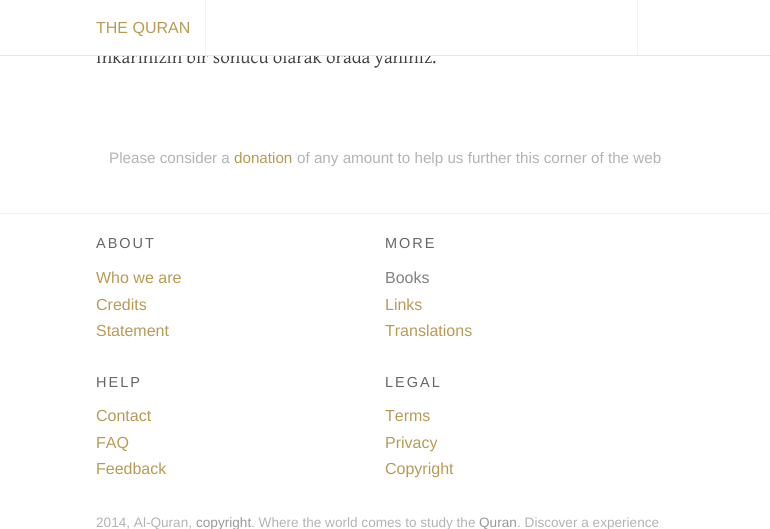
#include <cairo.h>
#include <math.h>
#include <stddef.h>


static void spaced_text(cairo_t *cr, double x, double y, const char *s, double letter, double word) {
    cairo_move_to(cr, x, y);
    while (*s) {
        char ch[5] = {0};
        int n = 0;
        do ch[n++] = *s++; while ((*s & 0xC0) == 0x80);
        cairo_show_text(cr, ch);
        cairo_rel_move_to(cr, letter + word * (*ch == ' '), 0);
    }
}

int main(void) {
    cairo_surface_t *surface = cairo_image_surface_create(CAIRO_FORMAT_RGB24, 770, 529);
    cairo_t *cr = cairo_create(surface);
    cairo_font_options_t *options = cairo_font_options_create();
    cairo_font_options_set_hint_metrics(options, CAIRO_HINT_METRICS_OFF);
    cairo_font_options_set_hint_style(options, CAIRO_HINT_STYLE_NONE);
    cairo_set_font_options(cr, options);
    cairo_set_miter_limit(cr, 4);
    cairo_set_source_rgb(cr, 1, 1, 1);
    cairo_paint(cr);
    cairo_select_font_face(cr, "Gentium Plus", CAIRO_FONT_SLANT_NORMAL, CAIRO_FONT_WEIGHT_NORMAL);
    cairo_set_font_size(cr, 19);
    cairo_set_source_rgb(cr, 0.251, 0.251, 0.251);
    cairo_move_to(cr, 96, 63);
    cairo_show_text(cr, "İnkarınızın bir sonucu olarak orada yanınız.");
    cairo_set_source_rgb(cr, 1, 1, 1);
    cairo_rectangle(cr, 96, 47, 336, 8);
    cairo_fill(cr);
    cairo_set_source_rgb(cr, 0.902, 0.902, 0.902);
    cairo_rectangle(cr, 0, 55, 770, 1);
    cairo_fill(cr);
    cairo_set_source_rgb(cr, 0.949, 0.949, 0.949);
    cairo_rectangle(cr, 205, 0, 1, 55);
    cairo_fill(cr);
    cairo_select_font_face(cr, "Liberation Sans", CAIRO_FONT_SLANT_NORMAL, CAIRO_FONT_WEIGHT_NORMAL);
    cairo_set_font_size(cr, 16);
    cairo_set_source_rgb(cr, 0.725, 0.604, 0.329);
    cairo_move_to(cr, 96, 33);
    cairo_show_text(cr, "THE QURAN");
    cairo_set_source_rgb(cr, 0.949, 0.949, 0.949);
    cairo_rectangle(cr, 637, 0, 1, 55);
    cairo_fill(cr);
    cairo_set_font_size(cr, 15.2);
    cairo_set_source_rgb(cr, 0.702, 0.702, 0.702);
    cairo_move_to(cr, 109, 163);
    cairo_show_text(cr, "Please consider a");
    cairo_set_source_rgb(cr, 0.725, 0.604, 0.329);
    cairo_move_to(cr, 234, 163);
    cairo_show_text(cr, "donation");
    cairo_set_source_rgb(cr, 0.702, 0.702, 0.702);
    cairo_move_to(cr, 297, 163);
    cairo_show_text(cr, "of any amount to help us further this corner of the web");
    cairo_set_source_rgb(cr, 0.949, 0.949, 0.949);
    cairo_rectangle(cr, 0, 213, 770, 1);
    cairo_fill(cr);
    cairo_set_font_size(cr, 14.5);
    cairo_set_source_rgb(cr, 0.4, 0.4, 0.4);
    spaced_text(cr, 96, 248, "ABOUT", 2, 0);
    cairo_set_font_size(cr, 16);
    cairo_set_source_rgb(cr, 0.725, 0.604, 0.329);
    cairo_move_to(cr, 96, 283);
    cairo_show_text(cr, "Who we are");
    cairo_move_to(cr, 96, 310);
    cairo_show_text(cr, "Credits");
    cairo_move_to(cr, 96, 336);
    cairo_show_text(cr, "Statement");
    cairo_set_font_size(cr, 14.5);
    cairo_set_source_rgb(cr, 0.4, 0.4, 0.4);
    spaced_text(cr, 385, 248, "MORE", 2, 0);
    cairo_set_font_size(cr, 16);
    cairo_set_source_rgb(cr, 0.502, 0.502, 0.502);
    cairo_move_to(cr, 385, 283);
    cairo_show_text(cr, "Books");
    cairo_set_source_rgb(cr, 0.725, 0.604, 0.329);
    cairo_move_to(cr, 385, 310);
    cairo_show_text(cr, "Links");
    cairo_move_to(cr, 385, 336);
    cairo_show_text(cr, "Translations");
    cairo_set_font_size(cr, 14.5);
    cairo_set_source_rgb(cr, 0.4, 0.4, 0.4);
    spaced_text(cr, 96, 387, "HELP", 2, 0);
    cairo_set_font_size(cr, 16);
    cairo_set_source_rgb(cr, 0.725, 0.604, 0.329);
    cairo_move_to(cr, 96, 421);
    cairo_show_text(cr, "Contact");
    cairo_move_to(cr, 96, 448);
    cairo_show_text(cr, "FAQ");
    cairo_move_to(cr, 96, 474);
    cairo_show_text(cr, "Feedback");
    cairo_set_font_size(cr, 14.5);
    cairo_set_source_rgb(cr, 0.4, 0.4, 0.4);
    spaced_text(cr, 385, 387, "LEGAL", 2, 0);
    cairo_set_font_size(cr, 16);
    cairo_set_source_rgb(cr, 0.725, 0.604, 0.329);
    cairo_move_to(cr, 385, 421);
    cairo_show_text(cr, "Terms");
    cairo_move_to(cr, 385, 448);
    cairo_show_text(cr, "Privacy");
    cairo_move_to(cr, 385, 474);
    cairo_show_text(cr, "Copyright");
    cairo_set_font_size(cr, 13.6);
    cairo_set_source_rgb(cr, 0.702, 0.702, 0.702);
    cairo_move_to(cr, 96, 527);
    cairo_show_text(cr, "2014, Al-Quran,");
    cairo_set_source_rgb(cr, 0.6, 0.6, 0.6);
    cairo_move_to(cr, 196, 527);
    cairo_show_text(cr, "copyright");
    cairo_set_source_rgb(cr, 0.702, 0.702, 0.702);
    cairo_move_to(cr, 251, 527);
    cairo_show_text(cr, ". Where the world comes to study the");
    cairo_set_source_rgb(cr, 0.6, 0.6, 0.6);
    cairo_move_to(cr, 479, 527);
    cairo_show_text(cr, "Quran");
    cairo_set_source_rgb(cr, 0.702, 0.702, 0.702);
    cairo_move_to(cr, 517, 527);
    cairo_show_text(cr, ". Discover a experience");
    cairo_surface_write_to_png(surface, "page.png");
    cairo_font_options_destroy(options);
    cairo_destroy(cr);
    cairo_surface_destroy(surface);
    return 0;
}
